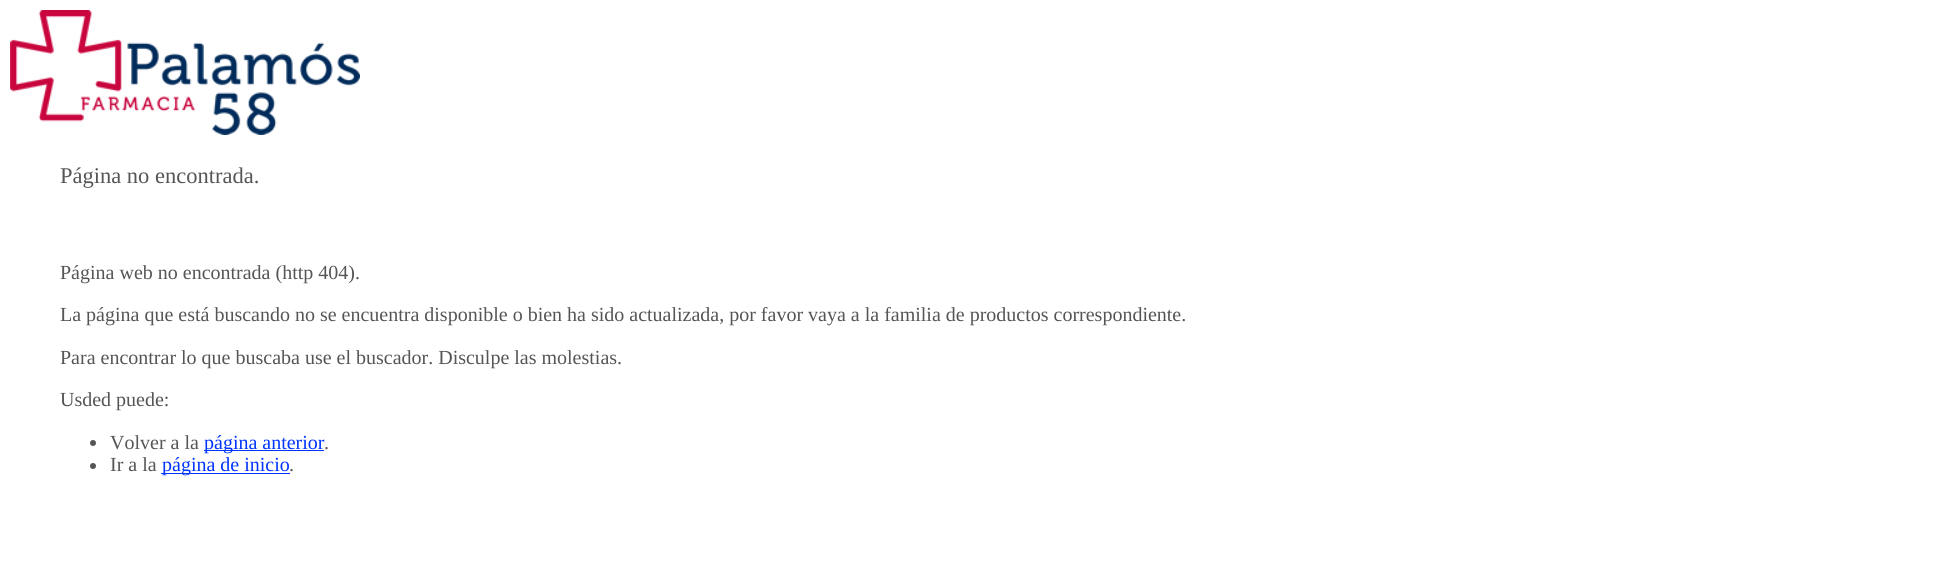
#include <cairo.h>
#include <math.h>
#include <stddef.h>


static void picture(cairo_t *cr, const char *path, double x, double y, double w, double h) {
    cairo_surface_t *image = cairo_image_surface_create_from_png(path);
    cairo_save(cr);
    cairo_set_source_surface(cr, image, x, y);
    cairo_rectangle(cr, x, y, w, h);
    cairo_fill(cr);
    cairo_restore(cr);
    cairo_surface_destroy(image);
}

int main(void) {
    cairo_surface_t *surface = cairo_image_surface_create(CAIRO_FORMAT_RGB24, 1937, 583);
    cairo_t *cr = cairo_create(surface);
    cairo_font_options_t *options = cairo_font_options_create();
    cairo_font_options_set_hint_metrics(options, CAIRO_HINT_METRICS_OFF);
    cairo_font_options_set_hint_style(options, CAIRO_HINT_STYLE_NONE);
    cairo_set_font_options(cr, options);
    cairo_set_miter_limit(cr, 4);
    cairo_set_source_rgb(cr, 1, 1, 1);
    cairo_paint(cr);
    picture(cr, "img1.png", 10, 10, 350, 125);
    cairo_select_font_face(cr, "Liberation Serif", CAIRO_FONT_SLANT_NORMAL, CAIRO_FONT_WEIGHT_NORMAL);
    cairo_set_font_size(cr, 22.5);
    cairo_set_source_rgb(cr, 0.333, 0.333, 0.333);
    cairo_move_to(cr, 60, 183);
    cairo_show_text(cr, "Página no encontrada.");
    cairo_set_font_size(cr, 20);
    cairo_move_to(cr, 60, 279);
    cairo_show_text(cr, "Página web no encontrada (http 404).");
    cairo_move_to(cr, 60, 321);
    cairo_show_text(cr, "La página que está buscando no se encuentra disponible o bien ha sido actualizada, por favor vaya a la familia de productos correspondiente.");
    cairo_move_to(cr, 60, 364);
    cairo_show_text(cr, "Para encontrar lo que buscaba use el buscador. Disculpe las molestias.");
    cairo_move_to(cr, 60, 406);
    cairo_show_text(cr, "Usded puede:");
    cairo_new_path(cr);
    cairo_arc(cr, 93, 443, 3, 0, 2 * M_PI);
    cairo_fill(cr);
    cairo_move_to(cr, 110, 449);
    cairo_show_text(cr, "Volver a la");
    cairo_set_source_rgb(cr, 0, 0.204, 1);
    cairo_rectangle(cr, 204, 450, 120, 1);
    cairo_fill(cr);
    cairo_move_to(cr, 204, 449);
    cairo_show_text(cr, "página anterior");
    cairo_set_source_rgb(cr, 0.333, 0.333, 0.333);
    cairo_move_to(cr, 324, 449);
    cairo_show_text(cr, ".");
    cairo_new_path(cr);
    cairo_arc(cr, 93, 466, 3, 0, 2 * M_PI);
    cairo_fill(cr);
    cairo_move_to(cr, 110, 471);
    cairo_show_text(cr, "Ir a la");
    cairo_set_source_rgb(cr, 0, 0.204, 1);
    cairo_rectangle(cr, 161, 473, 129, 1);
    cairo_fill(cr);
    cairo_move_to(cr, 162, 471);
    cairo_show_text(cr, "página de inicio");
    cairo_set_source_rgb(cr, 0.333, 0.333, 0.333);
    cairo_move_to(cr, 289, 471);
    cairo_show_text(cr, ".");
    cairo_surface_write_to_png(surface, "page.png");
    cairo_font_options_destroy(options);
    cairo_destroy(cr);
    cairo_surface_destroy(surface);
    return 0;
}
